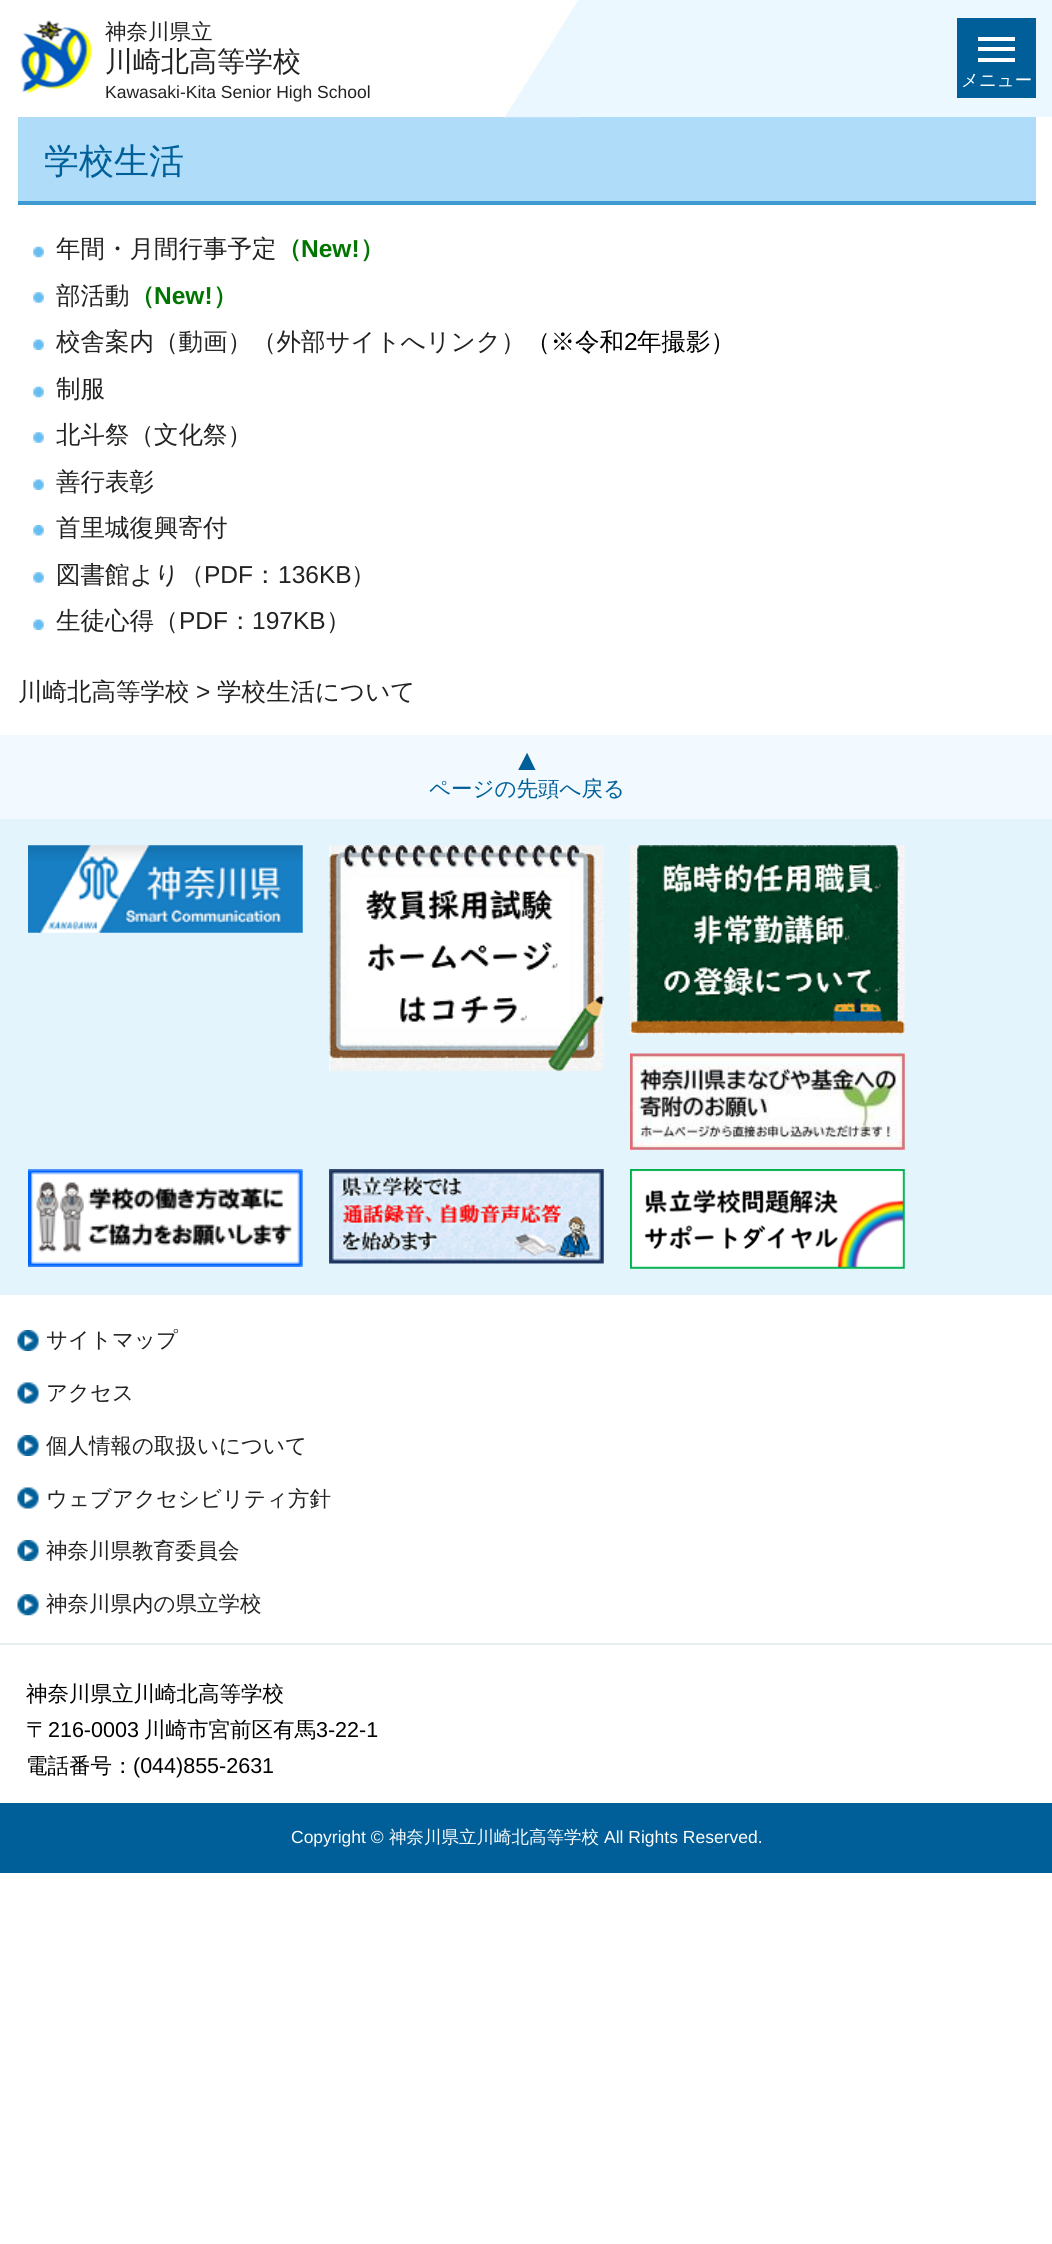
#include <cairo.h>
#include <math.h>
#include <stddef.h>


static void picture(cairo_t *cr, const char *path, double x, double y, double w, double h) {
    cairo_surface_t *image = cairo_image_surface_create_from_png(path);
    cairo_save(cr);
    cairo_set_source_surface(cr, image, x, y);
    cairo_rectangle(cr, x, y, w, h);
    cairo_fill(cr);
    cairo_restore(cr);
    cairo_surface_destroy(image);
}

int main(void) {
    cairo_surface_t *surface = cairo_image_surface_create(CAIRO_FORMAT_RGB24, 1052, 2244);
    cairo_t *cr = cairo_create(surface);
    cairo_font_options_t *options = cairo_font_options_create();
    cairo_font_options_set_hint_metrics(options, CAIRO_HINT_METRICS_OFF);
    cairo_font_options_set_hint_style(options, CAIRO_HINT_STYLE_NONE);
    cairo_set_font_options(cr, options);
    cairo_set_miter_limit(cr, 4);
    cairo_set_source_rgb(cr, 1, 1, 1);
    cairo_paint(cr);
    cairo_set_source_rgb(cr, 0.918, 0.969, 1);
    cairo_rectangle(cr, 579, 0, 473, 117);
    cairo_fill(cr);
    cairo_set_source_rgb(cr, 0.682, 0.863, 0.973);
    cairo_rectangle(cr, 18, 117, 1018, 84);
    cairo_fill(cr);
    picture(cr, "img1.png", 504, 0, 76, 118);
    picture(cr, "img2.png", 20, 20, 73, 74);
    cairo_select_font_face(cr, "WenQuanYi Zen Hei Medium", CAIRO_FONT_SLANT_NORMAL, CAIRO_FONT_WEIGHT_NORMAL);
    cairo_set_font_size(cr, 21.5);
    cairo_set_source_rgb(cr, 0.133, 0.133, 0.133);
    cairo_move_to(cr, 105, 39);
    cairo_show_text(cr, "神奈川県立");
    cairo_set_font_size(cr, 28);
    cairo_move_to(cr, 105, 71);
    cairo_show_text(cr, "川崎北高等学校");
    cairo_select_font_face(cr, "Liberation Sans", CAIRO_FONT_SLANT_NORMAL, CAIRO_FONT_WEIGHT_NORMAL);
    cairo_set_font_size(cr, 17.5);
    cairo_move_to(cr, 105, 98);
    cairo_show_text(cr, "Kawasaki-Kita Senior High School");
    cairo_set_source_rgb(cr, 0, 0.373, 0.596);
    cairo_rectangle(cr, 957, 18, 79, 80);
    cairo_fill(cr);
    cairo_set_source_rgb(cr, 1, 1, 1);
    cairo_rectangle(cr, 978, 37, 37, 4);
    cairo_fill(cr);
    cairo_rectangle(cr, 978, 58, 37, 4);
    cairo_fill(cr);
    cairo_rectangle(cr, 978, 47, 37, 4);
    cairo_fill(cr);
    cairo_select_font_face(cr, "WenQuanYi Zen Hei Medium", CAIRO_FONT_SLANT_NORMAL, CAIRO_FONT_WEIGHT_NORMAL);
    cairo_move_to(cr, 961, 86);
    cairo_show_text(cr, "メニュー");
    cairo_set_source_rgb(cr, 0.247, 0.604, 0.824);
    cairo_rectangle(cr, 18, 201, 1018, 4);
    cairo_fill(cr);
    cairo_set_font_size(cr, 35);
    cairo_set_source_rgb(cr, 0, 0.373, 0.596);
    cairo_move_to(cr, 44, 173);
    cairo_show_text(cr, "学校生活");
    picture(cr, "img3.png", 33, 246, 11, 12);
    cairo_set_font_size(cr, 24.5);
    cairo_set_source_rgb(cr, 0.133, 0.133, 0.133);
    cairo_move_to(cr, 56, 257);
    cairo_show_text(cr, "年間・月間行事予定");
    cairo_select_font_face(cr, "WenQuanYi Zen Hei", CAIRO_FONT_SLANT_NORMAL, CAIRO_FONT_WEIGHT_BOLD);
    cairo_set_source_rgb(cr, 0, 0.459, 0);
    cairo_move_to(cr, 277, 257);
    cairo_show_text(cr, "（");
    cairo_select_font_face(cr, "Liberation Sans", CAIRO_FONT_SLANT_NORMAL, CAIRO_FONT_WEIGHT_BOLD);
    cairo_move_to(cr, 301, 257);
    cairo_show_text(cr, "New!");
    cairo_select_font_face(cr, "WenQuanYi Zen Hei", CAIRO_FONT_SLANT_NORMAL, CAIRO_FONT_WEIGHT_BOLD);
    cairo_move_to(cr, 360, 257);
    cairo_show_text(cr, "）");
    picture(cr, "img4.png", 33, 292, 11, 11);
    cairo_select_font_face(cr, "WenQuanYi Zen Hei Medium", CAIRO_FONT_SLANT_NORMAL, CAIRO_FONT_WEIGHT_NORMAL);
    cairo_set_source_rgb(cr, 0.133, 0.133, 0.133);
    cairo_move_to(cr, 56, 304);
    cairo_show_text(cr, "部活動");
    cairo_select_font_face(cr, "WenQuanYi Zen Hei", CAIRO_FONT_SLANT_NORMAL, CAIRO_FONT_WEIGHT_BOLD);
    cairo_set_source_rgb(cr, 0, 0.459, 0);
    cairo_move_to(cr, 130, 304);
    cairo_show_text(cr, "（");
    cairo_select_font_face(cr, "Liberation Sans", CAIRO_FONT_SLANT_NORMAL, CAIRO_FONT_WEIGHT_BOLD);
    cairo_move_to(cr, 154, 304);
    cairo_show_text(cr, "New!");
    cairo_select_font_face(cr, "WenQuanYi Zen Hei", CAIRO_FONT_SLANT_NORMAL, CAIRO_FONT_WEIGHT_BOLD);
    cairo_move_to(cr, 213, 304);
    cairo_show_text(cr, "）");
    picture(cr, "img5.png", 33, 339, 11, 11);
    cairo_select_font_face(cr, "WenQuanYi Zen Hei Medium", CAIRO_FONT_SLANT_NORMAL, CAIRO_FONT_WEIGHT_NORMAL);
    cairo_set_source_rgb(cr, 0.133, 0.133, 0.133);
    cairo_move_to(cr, 56, 350);
    cairo_show_text(cr, "校舎案内（動画）（外部サイトへリンク）");
    cairo_set_source_rgb(cr, 0, 0, 0);
    cairo_move_to(cr, 526, 350);
    cairo_show_text(cr, "（※令和");
    cairo_select_font_face(cr, "Liberation Sans", CAIRO_FONT_SLANT_NORMAL, CAIRO_FONT_WEIGHT_NORMAL);
    cairo_move_to(cr, 624, 350);
    cairo_show_text(cr, "2");
    cairo_select_font_face(cr, "WenQuanYi Zen Hei Medium", CAIRO_FONT_SLANT_NORMAL, CAIRO_FONT_WEIGHT_NORMAL);
    cairo_move_to(cr, 637, 350);
    cairo_show_text(cr, "年撮影）");
    picture(cr, "img3.png", 33, 386, 11, 12);
    cairo_set_source_rgb(cr, 0.133, 0.133, 0.133);
    cairo_move_to(cr, 56, 397);
    cairo_show_text(cr, "制服");
    picture(cr, "img4.png", 33, 432, 11, 11);
    cairo_move_to(cr, 56, 443);
    cairo_show_text(cr, "北斗祭（文化祭）");
    picture(cr, "img5.png", 33, 479, 11, 11);
    cairo_move_to(cr, 56, 490);
    cairo_show_text(cr, "善行表彰");
    picture(cr, "img6.png", 33, 525, 11, 11);
    cairo_move_to(cr, 56, 536);
    cairo_show_text(cr, "首里城復興寄付");
    picture(cr, "img4.png", 33, 572, 11, 11);
    cairo_move_to(cr, 56, 583);
    cairo_show_text(cr, "図書館より（");
    cairo_select_font_face(cr, "Liberation Sans", CAIRO_FONT_SLANT_NORMAL, CAIRO_FONT_WEIGHT_NORMAL);
    cairo_move_to(cr, 204, 583);
    cairo_show_text(cr, "PDF");
    cairo_select_font_face(cr, "WenQuanYi Zen Hei Medium", CAIRO_FONT_SLANT_NORMAL, CAIRO_FONT_WEIGHT_NORMAL);
    cairo_move_to(cr, 253, 583);
    cairo_show_text(cr, "：");
    cairo_select_font_face(cr, "Liberation Sans", CAIRO_FONT_SLANT_NORMAL, CAIRO_FONT_WEIGHT_NORMAL);
    cairo_move_to(cr, 278, 583);
    cairo_show_text(cr, "136KB");
    cairo_select_font_face(cr, "WenQuanYi Zen Hei Medium", CAIRO_FONT_SLANT_NORMAL, CAIRO_FONT_WEIGHT_NORMAL);
    cairo_move_to(cr, 351, 583);
    cairo_show_text(cr, "）");
    picture(cr, "img5.png", 33, 619, 11, 11);
    cairo_move_to(cr, 56, 629);
    cairo_show_text(cr, "生徒心得（");
    cairo_select_font_face(cr, "Liberation Sans", CAIRO_FONT_SLANT_NORMAL, CAIRO_FONT_WEIGHT_NORMAL);
    cairo_move_to(cr, 179, 629);
    cairo_show_text(cr, "PDF");
    cairo_select_font_face(cr, "WenQuanYi Zen Hei Medium", CAIRO_FONT_SLANT_NORMAL, CAIRO_FONT_WEIGHT_NORMAL);
    cairo_move_to(cr, 228, 629);
    cairo_show_text(cr, "：");
    cairo_select_font_face(cr, "Liberation Sans", CAIRO_FONT_SLANT_NORMAL, CAIRO_FONT_WEIGHT_NORMAL);
    cairo_move_to(cr, 252, 629);
    cairo_show_text(cr, "197KB");
    cairo_select_font_face(cr, "WenQuanYi Zen Hei Medium", CAIRO_FONT_SLANT_NORMAL, CAIRO_FONT_WEIGHT_NORMAL);
    cairo_move_to(cr, 326, 629);
    cairo_show_text(cr, "）");
    cairo_move_to(cr, 18, 700);
    cairo_show_text(cr, "川崎北高等学校");
    cairo_select_font_face(cr, "Liberation Sans", CAIRO_FONT_SLANT_NORMAL, CAIRO_FONT_WEIGHT_NORMAL);
    cairo_move_to(cr, 196, 700);
    cairo_show_text(cr, ">");
    cairo_select_font_face(cr, "WenQuanYi Zen Hei Medium", CAIRO_FONT_SLANT_NORMAL, CAIRO_FONT_WEIGHT_NORMAL);
    cairo_move_to(cr, 217, 700);
    cairo_show_text(cr, "学校生活について");
    cairo_set_source_rgb(cr, 0.949, 0.98, 1);
    cairo_rectangle(cr, 0, 735, 1052, 84);
    cairo_fill(cr);
    cairo_set_source_rgb(cr, 0.957, 0.973, 0.98);
    cairo_new_path(cr);
    cairo_move_to(cr, 535.5, 752.5);
    cairo_line_to(cr, 535.5, 770);
    cairo_line_to(cr, 527, 752.5);
    cairo_close_path(cr);
    cairo_fill(cr);
    cairo_set_source_rgb(cr, 0, 0.373, 0.596);
    cairo_new_path(cr);
    cairo_move_to(cr, 535.5, 770);
    cairo_line_to(cr, 518, 770);
    cairo_line_to(cr, 527, 752.5);
    cairo_close_path(cr);
    cairo_fill(cr);
    cairo_set_source_rgb(cr, 0.957, 0.973, 0.98);
    cairo_new_path(cr);
    cairo_move_to(cr, 518, 770);
    cairo_line_to(cr, 518, 752.5);
    cairo_line_to(cr, 527, 752.5);
    cairo_close_path(cr);
    cairo_fill(cr);
    cairo_set_font_size(cr, 21.5);
    cairo_set_source_rgb(cr, 0, 0.373, 0.596);
    cairo_move_to(cr, 429, 796);
    cairo_show_text(cr, "ページの先頭へ戻る");
    cairo_set_source_rgb(cr, 0.894, 0.957, 0.992);
    cairo_rectangle(cr, 0, 819, 1052, 476);
    cairo_fill(cr);
    picture(cr, "img7.png", 28, 845, 275, 88);
    picture(cr, "img8.png", 329, 845, 275, 226);
    picture(cr, "img9.png", 630, 845, 275, 190);
    picture(cr, "img10.png", 630, 1053, 275, 97);
    picture(cr, "img11.png", 28, 1169, 275, 98);
    picture(cr, "img12.png", 329, 1169, 275, 95);
    picture(cr, "img13.png", 630, 1169, 275, 100);
    cairo_set_source_rgb(cr, 0.91, 0.929, 0.937);
    cairo_rectangle(cr, 0, 1643, 1052, 2);
    cairo_fill(cr);
    picture(cr, "img14.png", 17, 1330, 22, 21);
    cairo_set_source_rgb(cr, 0.133, 0.133, 0.133);
    cairo_move_to(cr, 46, 1347);
    cairo_show_text(cr, "サイトマップ");
    picture(cr, "img15.png", 17, 1382, 22, 22);
    cairo_move_to(cr, 46, 1400);
    cairo_show_text(cr, "アクセス");
    picture(cr, "img14.png", 17, 1435, 22, 21);
    cairo_move_to(cr, 46, 1453);
    cairo_show_text(cr, "個人情報の取扱いについて");
    picture(cr, "img15.png", 17, 1487, 22, 22);
    cairo_move_to(cr, 46, 1506);
    cairo_show_text(cr, "ウェブアクセシビリティ方針");
    picture(cr, "img14.png", 17, 1540, 22, 21);
    cairo_move_to(cr, 46, 1558);
    cairo_show_text(cr, "神奈川県教育委員会");
    picture(cr, "img16.png", 17, 1594, 22, 22);
    cairo_move_to(cr, 46, 1611);
    cairo_show_text(cr, "神奈川県内の県立学校");
    cairo_set_source_rgb(cr, 0, 0, 0);
    cairo_move_to(cr, 26, 1701);
    cairo_show_text(cr, "神奈川県立川崎北高等学校");
    cairo_move_to(cr, 26, 1737);
    cairo_show_text(cr, "〒");
    cairo_select_font_face(cr, "Liberation Sans", CAIRO_FONT_SLANT_NORMAL, CAIRO_FONT_WEIGHT_NORMAL);
    cairo_move_to(cr, 48, 1737);
    cairo_show_text(cr, "216-0003");
    cairo_select_font_face(cr, "WenQuanYi Zen Hei Medium", CAIRO_FONT_SLANT_NORMAL, CAIRO_FONT_WEIGHT_NORMAL);
    cairo_move_to(cr, 144, 1737);
    cairo_show_text(cr, "川崎市宮前区有馬");
    cairo_select_font_face(cr, "Liberation Sans", CAIRO_FONT_SLANT_NORMAL, CAIRO_FONT_WEIGHT_NORMAL);
    cairo_move_to(cr, 316, 1737);
    cairo_show_text(cr, "3-22-1");
    cairo_select_font_face(cr, "WenQuanYi Zen Hei Medium", CAIRO_FONT_SLANT_NORMAL, CAIRO_FONT_WEIGHT_NORMAL);
    cairo_move_to(cr, 26, 1773);
    cairo_show_text(cr, "電話番号：");
    cairo_select_font_face(cr, "Liberation Sans", CAIRO_FONT_SLANT_NORMAL, CAIRO_FONT_WEIGHT_NORMAL);
    cairo_move_to(cr, 133, 1773);
    cairo_show_text(cr, "(044)855-2631");
    cairo_set_source_rgb(cr, 0, 0.373, 0.596);
    cairo_rectangle(cr, 0, 1803, 1052, 70);
    cairo_fill(cr);
    cairo_set_font_size(cr, 17.5);
    cairo_set_source_rgb(cr, 1, 1, 1);
    cairo_move_to(cr, 291, 1843);
    cairo_show_text(cr, "Copyright ©");
    cairo_select_font_face(cr, "WenQuanYi Zen Hei Medium", CAIRO_FONT_SLANT_NORMAL, CAIRO_FONT_WEIGHT_NORMAL);
    cairo_move_to(cr, 389, 1843);
    cairo_show_text(cr, "神奈川県立川崎北高等学校");
    cairo_select_font_face(cr, "Liberation Sans", CAIRO_FONT_SLANT_NORMAL, CAIRO_FONT_WEIGHT_NORMAL);
    cairo_move_to(cr, 604, 1843);
    cairo_show_text(cr, "All Rights Reserved.");
    cairo_surface_write_to_png(surface, "page.png");
    cairo_font_options_destroy(options);
    cairo_destroy(cr);
    cairo_surface_destroy(surface);
    return 0;
}
